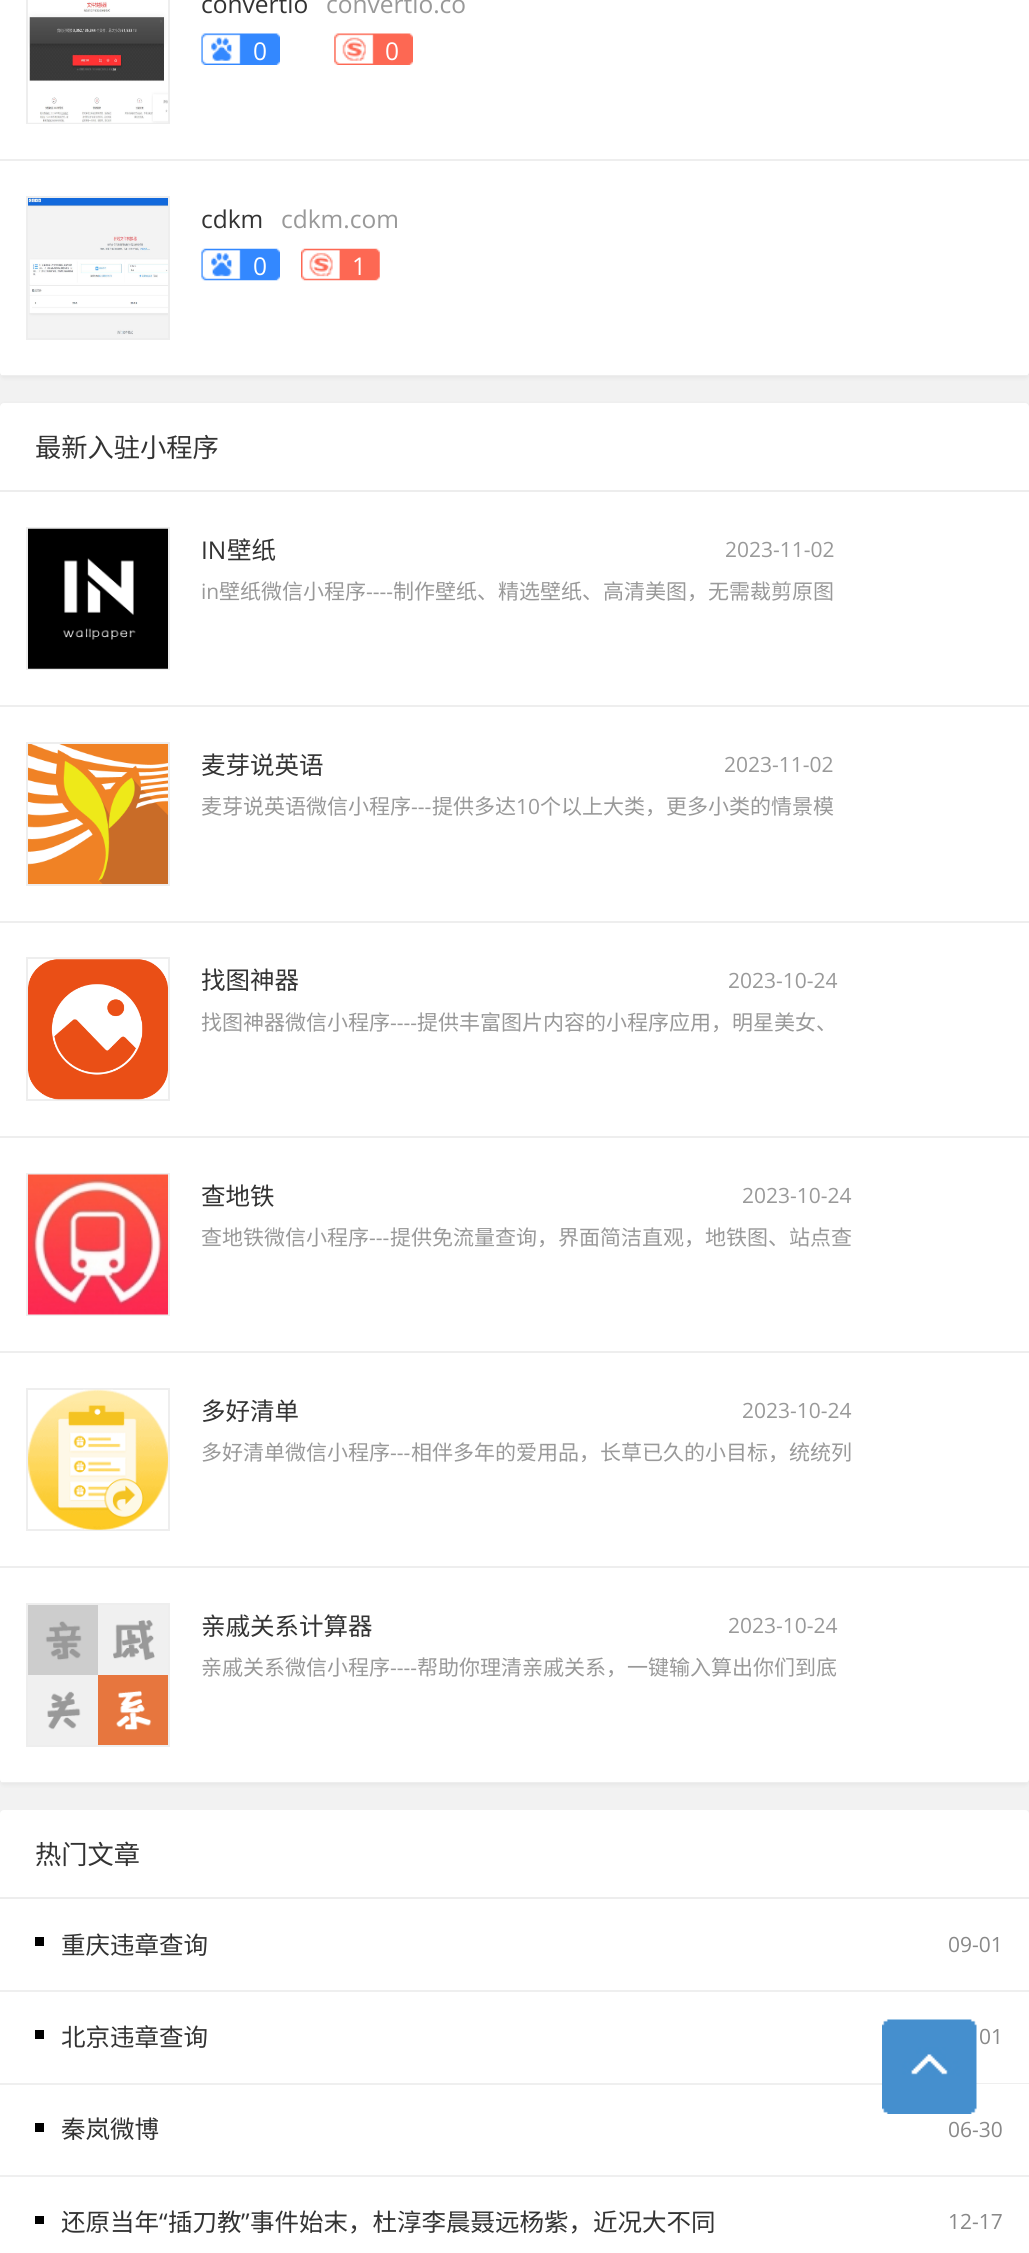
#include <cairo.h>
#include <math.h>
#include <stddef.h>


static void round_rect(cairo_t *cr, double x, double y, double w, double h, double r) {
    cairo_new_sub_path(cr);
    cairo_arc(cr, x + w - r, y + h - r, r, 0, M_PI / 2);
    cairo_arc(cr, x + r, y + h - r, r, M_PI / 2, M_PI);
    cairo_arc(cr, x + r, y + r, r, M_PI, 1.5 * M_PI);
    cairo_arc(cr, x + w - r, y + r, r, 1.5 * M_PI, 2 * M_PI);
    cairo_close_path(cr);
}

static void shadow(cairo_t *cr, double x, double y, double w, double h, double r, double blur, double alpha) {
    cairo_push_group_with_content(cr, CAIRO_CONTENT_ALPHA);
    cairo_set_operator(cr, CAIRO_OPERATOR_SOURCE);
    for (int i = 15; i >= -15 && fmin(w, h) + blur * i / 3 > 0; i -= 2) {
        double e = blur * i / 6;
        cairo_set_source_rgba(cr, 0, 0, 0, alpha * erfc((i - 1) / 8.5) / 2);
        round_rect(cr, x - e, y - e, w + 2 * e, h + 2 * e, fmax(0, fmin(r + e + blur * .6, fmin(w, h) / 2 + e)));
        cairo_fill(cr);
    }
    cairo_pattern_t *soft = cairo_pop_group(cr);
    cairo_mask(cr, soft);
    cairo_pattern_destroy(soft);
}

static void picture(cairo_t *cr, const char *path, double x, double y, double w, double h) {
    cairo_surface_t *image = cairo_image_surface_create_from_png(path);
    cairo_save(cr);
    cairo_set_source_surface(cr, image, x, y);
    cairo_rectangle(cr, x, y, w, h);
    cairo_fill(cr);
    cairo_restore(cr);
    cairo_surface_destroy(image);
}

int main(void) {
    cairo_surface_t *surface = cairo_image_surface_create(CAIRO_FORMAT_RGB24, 1029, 2253);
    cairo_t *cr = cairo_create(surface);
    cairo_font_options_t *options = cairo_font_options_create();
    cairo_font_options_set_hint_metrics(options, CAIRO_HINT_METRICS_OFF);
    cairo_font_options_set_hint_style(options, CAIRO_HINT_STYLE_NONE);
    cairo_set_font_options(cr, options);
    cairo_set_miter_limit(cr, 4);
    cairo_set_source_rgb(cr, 0.949, 0.949, 0.949);
    cairo_paint(cr);
    cairo_set_source_rgb(cr, 0, 0, 0);
    shadow(cr, 0, -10, 1029, 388, 4, 2, 0.05);
    cairo_set_source_rgb(cr, 1, 1, 1);
    round_rect(cr, 0, -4, 1029, 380, 4);
    cairo_fill(cr);
    cairo_set_source_rgb(cr, 0.933, 0.933, 0.933);
    cairo_rectangle(cr, 0, 159, 1029, 2);
    cairo_fill(cr);
    cairo_rectangle(cr, 27, -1, 142, 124);
    cairo_stroke(cr);
    picture(cr, "img1.png", 28, 1, 140, 122);
    cairo_select_font_face(cr, "Open Sans", CAIRO_FONT_SLANT_NORMAL, CAIRO_FONT_WEIGHT_NORMAL);
    cairo_set_font_size(cr, 24.5);
    cairo_set_source_rgb(cr, 0.2, 0.2, 0.2);
    cairo_move_to(cr, 201, 13);
    cairo_show_text(cr, "convertio");
    cairo_set_source_rgb(cr, 0.6, 0.6, 0.6);
    cairo_move_to(cr, 326, 13);
    cairo_show_text(cr, "convertio.co");
    picture(cr, "img2.png", 201, 33, 79, 32);
    cairo_set_source_rgb(cr, 1, 1, 1);
    cairo_move_to(cr, 253, 60);
    cairo_show_text(cr, "0");
    picture(cr, "img3.png", 334, 33, 79, 32);
    cairo_move_to(cr, 385, 60);
    cairo_show_text(cr, "0");
    cairo_set_source_rgb(cr, 0.933, 0.933, 0.933);
    cairo_rectangle(cr, 0, 375, 1029, 1);
    cairo_fill(cr);
    cairo_rectangle(cr, 27, 197, 142, 142);
    cairo_stroke(cr);
    picture(cr, "img4.png", 28, 198, 140, 140);
    cairo_set_source_rgb(cr, 0.2, 0.2, 0.2);
    cairo_move_to(cr, 201, 228);
    cairo_show_text(cr, "cdkm");
    cairo_set_source_rgb(cr, 0.6, 0.6, 0.6);
    cairo_move_to(cr, 281, 228);
    cairo_show_text(cr, "cdkm.com");
    picture(cr, "img5.png", 201, 248, 79, 33);
    cairo_set_source_rgb(cr, 1, 1, 1);
    cairo_move_to(cr, 253, 275);
    cairo_show_text(cr, "0");
    picture(cr, "img6.png", 301, 248, 79, 33);
    cairo_move_to(cr, 352, 275);
    cairo_show_text(cr, "1");
    cairo_set_source_rgb(cr, 0, 0, 0);
    shadow(cr, 0, 404, 1029, 1381, 4, 2, 0.05);
    cairo_set_source_rgb(cr, 1, 1, 1);
    round_rect(cr, 0, 403, 1029, 1380, 4);
    cairo_fill(cr);
    cairo_set_source_rgb(cr, 0.929, 0.929, 0.929);
    cairo_rectangle(cr, 0, 490, 1029, 2);
    cairo_fill(cr);
    cairo_select_font_face(cr, "Noto Sans CJK SC", CAIRO_FONT_SLANT_NORMAL, CAIRO_FONT_WEIGHT_NORMAL);
    cairo_set_font_size(cr, 26.25);
    cairo_set_source_rgb(cr, 0.2, 0.2, 0.2);
    cairo_move_to(cr, 35, 457);
    cairo_show_text(cr, "最新入驻小程序");
    cairo_set_source_rgb(cr, 0.933, 0.933, 0.933);
    cairo_rectangle(cr, 0, 705, 1029, 2);
    cairo_fill(cr);
    cairo_rectangle(cr, 27, 528, 142, 141);
    cairo_stroke(cr);
    picture(cr, "img7.png", 28, 528, 140, 141);
    cairo_select_font_face(cr, "Open Sans", CAIRO_FONT_SLANT_NORMAL, CAIRO_FONT_WEIGHT_NORMAL);
    cairo_set_font_size(cr, 24.5);
    cairo_set_source_rgb(cr, 0.2, 0.2, 0.2);
    cairo_move_to(cr, 201, 559);
    cairo_show_text(cr, "IN");
    cairo_select_font_face(cr, "Noto Sans CJK SC", CAIRO_FONT_SLANT_NORMAL, CAIRO_FONT_WEIGHT_NORMAL);
    cairo_move_to(cr, 227, 559);
    cairo_show_text(cr, "壁纸");
    cairo_select_font_face(cr, "Open Sans", CAIRO_FONT_SLANT_NORMAL, CAIRO_FONT_WEIGHT_NORMAL);
    cairo_set_font_size(cr, 21);
    cairo_set_source_rgb(cr, 0.6, 0.6, 0.6);
    cairo_move_to(cr, 725, 557);
    cairo_show_text(cr, "2023-11-02");
    cairo_move_to(cr, 201, 599);
    cairo_show_text(cr, "in");
    cairo_select_font_face(cr, "Noto Sans CJK SC", CAIRO_FONT_SLANT_NORMAL, CAIRO_FONT_WEIGHT_NORMAL);
    cairo_move_to(cr, 219, 599);
    cairo_show_text(cr, "壁纸微信小程序");
    cairo_select_font_face(cr, "Open Sans", CAIRO_FONT_SLANT_NORMAL, CAIRO_FONT_WEIGHT_NORMAL);
    cairo_move_to(cr, 366, 599);
    cairo_show_text(cr, "----");
    cairo_select_font_face(cr, "Noto Sans CJK SC", CAIRO_FONT_SLANT_NORMAL, CAIRO_FONT_WEIGHT_NORMAL);
    cairo_move_to(cr, 393, 599);
    cairo_show_text(cr, "制作壁纸、精选壁纸、高清美图，无需裁剪原图");
    cairo_set_source_rgb(cr, 0.933, 0.933, 0.933);
    cairo_rectangle(cr, 0, 921, 1029, 2);
    cairo_fill(cr);
    cairo_rectangle(cr, 27, 743, 142, 142);
    cairo_stroke(cr);
    picture(cr, "img8.png", 28, 744, 140, 140);
    cairo_set_font_size(cr, 24.5);
    cairo_set_source_rgb(cr, 0.2, 0.2, 0.2);
    cairo_move_to(cr, 201, 774);
    cairo_show_text(cr, "麦芽说英语");
    cairo_select_font_face(cr, "Open Sans", CAIRO_FONT_SLANT_NORMAL, CAIRO_FONT_WEIGHT_NORMAL);
    cairo_set_font_size(cr, 21);
    cairo_set_source_rgb(cr, 0.6, 0.6, 0.6);
    cairo_move_to(cr, 724, 772);
    cairo_show_text(cr, "2023-11-02");
    cairo_select_font_face(cr, "Noto Sans CJK SC", CAIRO_FONT_SLANT_NORMAL, CAIRO_FONT_WEIGHT_NORMAL);
    cairo_move_to(cr, 201, 814);
    cairo_show_text(cr, "麦芽说英语微信小程序");
    cairo_select_font_face(cr, "Open Sans", CAIRO_FONT_SLANT_NORMAL, CAIRO_FONT_WEIGHT_NORMAL);
    cairo_move_to(cr, 411, 814);
    cairo_show_text(cr, "---");
    cairo_select_font_face(cr, "Noto Sans CJK SC", CAIRO_FONT_SLANT_NORMAL, CAIRO_FONT_WEIGHT_NORMAL);
    cairo_move_to(cr, 432, 814);
    cairo_show_text(cr, "提供多达");
    cairo_select_font_face(cr, "Open Sans", CAIRO_FONT_SLANT_NORMAL, CAIRO_FONT_WEIGHT_NORMAL);
    cairo_move_to(cr, 516, 814);
    cairo_show_text(cr, "10");
    cairo_select_font_face(cr, "Noto Sans CJK SC", CAIRO_FONT_SLANT_NORMAL, CAIRO_FONT_WEIGHT_NORMAL);
    cairo_move_to(cr, 540, 814);
    cairo_show_text(cr, "个以上大类，更多小类的情景模");
    cairo_set_source_rgb(cr, 0.933, 0.933, 0.933);
    cairo_rectangle(cr, 0, 1136, 1029, 2);
    cairo_fill(cr);
    cairo_rectangle(cr, 27, 958, 142, 142);
    cairo_stroke(cr);
    picture(cr, "img9.png", 28, 959, 140, 141);
    cairo_set_font_size(cr, 24.5);
    cairo_set_source_rgb(cr, 0.2, 0.2, 0.2);
    cairo_move_to(cr, 201, 989);
    cairo_show_text(cr, "找图神器");
    cairo_select_font_face(cr, "Open Sans", CAIRO_FONT_SLANT_NORMAL, CAIRO_FONT_WEIGHT_NORMAL);
    cairo_set_font_size(cr, 21);
    cairo_set_source_rgb(cr, 0.6, 0.6, 0.6);
    cairo_move_to(cr, 728, 988);
    cairo_show_text(cr, "2023-10-24");
    cairo_select_font_face(cr, "Noto Sans CJK SC", CAIRO_FONT_SLANT_NORMAL, CAIRO_FONT_WEIGHT_NORMAL);
    cairo_move_to(cr, 201, 1030);
    cairo_show_text(cr, "找图神器微信小程序");
    cairo_select_font_face(cr, "Open Sans", CAIRO_FONT_SLANT_NORMAL, CAIRO_FONT_WEIGHT_NORMAL);
    cairo_move_to(cr, 390, 1030);
    cairo_show_text(cr, "----");
    cairo_select_font_face(cr, "Noto Sans CJK SC", CAIRO_FONT_SLANT_NORMAL, CAIRO_FONT_WEIGHT_NORMAL);
    cairo_move_to(cr, 417, 1030);
    cairo_show_text(cr, "提供丰富图片内容的小程序应用，明星美女、");
    cairo_set_source_rgb(cr, 0.933, 0.933, 0.933);
    cairo_rectangle(cr, 0, 1351, 1029, 2);
    cairo_fill(cr);
    cairo_rectangle(cr, 27, 1174, 142, 141);
    cairo_stroke(cr);
    picture(cr, "img10.png", 28, 1174, 140, 141);
    cairo_set_font_size(cr, 24.5);
    cairo_set_source_rgb(cr, 0.2, 0.2, 0.2);
    cairo_move_to(cr, 201, 1205);
    cairo_show_text(cr, "查地铁");
    cairo_select_font_face(cr, "Open Sans", CAIRO_FONT_SLANT_NORMAL, CAIRO_FONT_WEIGHT_NORMAL);
    cairo_set_font_size(cr, 21);
    cairo_set_source_rgb(cr, 0.6, 0.6, 0.6);
    cairo_move_to(cr, 742, 1203);
    cairo_show_text(cr, "2023-10-24");
    cairo_select_font_face(cr, "Noto Sans CJK SC", CAIRO_FONT_SLANT_NORMAL, CAIRO_FONT_WEIGHT_NORMAL);
    cairo_move_to(cr, 201, 1245);
    cairo_show_text(cr, "查地铁微信小程序");
    cairo_select_font_face(cr, "Open Sans", CAIRO_FONT_SLANT_NORMAL, CAIRO_FONT_WEIGHT_NORMAL);
    cairo_move_to(cr, 369, 1245);
    cairo_show_text(cr, "---");
    cairo_select_font_face(cr, "Noto Sans CJK SC", CAIRO_FONT_SLANT_NORMAL, CAIRO_FONT_WEIGHT_NORMAL);
    cairo_move_to(cr, 390, 1245);
    cairo_show_text(cr, "提供免流量查询，界面简洁直观，地铁图、站点查");
    cairo_set_source_rgb(cr, 0.933, 0.933, 0.933);
    cairo_rectangle(cr, 0, 1566, 1029, 2);
    cairo_fill(cr);
    cairo_rectangle(cr, 27, 1389, 142, 141);
    cairo_stroke(cr);
    picture(cr, "img11.png", 28, 1389, 140, 141);
    cairo_set_font_size(cr, 24.5);
    cairo_set_source_rgb(cr, 0.2, 0.2, 0.2);
    cairo_move_to(cr, 201, 1420);
    cairo_show_text(cr, "多好清单");
    cairo_select_font_face(cr, "Open Sans", CAIRO_FONT_SLANT_NORMAL, CAIRO_FONT_WEIGHT_NORMAL);
    cairo_set_font_size(cr, 21);
    cairo_set_source_rgb(cr, 0.6, 0.6, 0.6);
    cairo_move_to(cr, 742, 1418);
    cairo_show_text(cr, "2023-10-24");
    cairo_select_font_face(cr, "Noto Sans CJK SC", CAIRO_FONT_SLANT_NORMAL, CAIRO_FONT_WEIGHT_NORMAL);
    cairo_move_to(cr, 201, 1460);
    cairo_show_text(cr, "多好清单微信小程序");
    cairo_select_font_face(cr, "Open Sans", CAIRO_FONT_SLANT_NORMAL, CAIRO_FONT_WEIGHT_NORMAL);
    cairo_move_to(cr, 390, 1460);
    cairo_show_text(cr, "---");
    cairo_select_font_face(cr, "Noto Sans CJK SC", CAIRO_FONT_SLANT_NORMAL, CAIRO_FONT_WEIGHT_NORMAL);
    cairo_move_to(cr, 411, 1460);
    cairo_show_text(cr, "相伴多年的爱用品，长草已久的小目标，统统列");
    cairo_set_source_rgb(cr, 0.933, 0.933, 0.933);
    cairo_rectangle(cr, 0, 1782, 1029, 1);
    cairo_fill(cr);
    cairo_rectangle(cr, 27, 1604, 142, 142);
    cairo_stroke(cr);
    picture(cr, "img12.png", 28, 1605, 140, 140);
    cairo_set_font_size(cr, 24.5);
    cairo_set_source_rgb(cr, 0.2, 0.2, 0.2);
    cairo_move_to(cr, 201, 1635);
    cairo_show_text(cr, "亲戚关系计算器");
    cairo_select_font_face(cr, "Open Sans", CAIRO_FONT_SLANT_NORMAL, CAIRO_FONT_WEIGHT_NORMAL);
    cairo_set_font_size(cr, 21);
    cairo_set_source_rgb(cr, 0.6, 0.6, 0.6);
    cairo_move_to(cr, 728, 1633);
    cairo_show_text(cr, "2023-10-24");
    cairo_select_font_face(cr, "Noto Sans CJK SC", CAIRO_FONT_SLANT_NORMAL, CAIRO_FONT_WEIGHT_NORMAL);
    cairo_move_to(cr, 201, 1675);
    cairo_show_text(cr, "亲戚关系微信小程序");
    cairo_select_font_face(cr, "Open Sans", CAIRO_FONT_SLANT_NORMAL, CAIRO_FONT_WEIGHT_NORMAL);
    cairo_move_to(cr, 390, 1675);
    cairo_show_text(cr, "----");
    cairo_select_font_face(cr, "Noto Sans CJK SC", CAIRO_FONT_SLANT_NORMAL, CAIRO_FONT_WEIGHT_NORMAL);
    cairo_move_to(cr, 417, 1675);
    cairo_show_text(cr, "帮助你理清亲戚关系，一键输入算出你们到底");
    cairo_set_source_rgb(cr, 1, 1, 1);
    round_rect(cr, 0, 1810, 1029, 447, 4);
    cairo_fill(cr);
    cairo_set_source_rgb(cr, 0.929, 0.929, 0.929);
    cairo_rectangle(cr, 0, 1897, 1029, 2);
    cairo_fill(cr);
    cairo_set_font_size(cr, 26.25);
    cairo_set_source_rgb(cr, 0.2, 0.2, 0.2);
    cairo_move_to(cr, 35, 1864);
    cairo_show_text(cr, "热门文章");
    cairo_set_source_rgb(cr, 0.937, 0.937, 0.937);
    cairo_rectangle(cr, 0, 1990, 1029, 2);
    cairo_fill(cr);
    cairo_set_source_rgb(cr, 0, 0, 0);
    cairo_rectangle(cr, 35, 1937, 9, 9);
    cairo_fill(cr);
    cairo_set_font_size(cr, 24.5);
    cairo_set_source_rgb(cr, 0.2, 0.2, 0.2);
    cairo_move_to(cr, 61, 1954);
    cairo_show_text(cr, "重庆违章查询");
    cairo_select_font_face(cr, "Open Sans", CAIRO_FONT_SLANT_NORMAL, CAIRO_FONT_WEIGHT_NORMAL);
    cairo_set_font_size(cr, 21);
    cairo_set_source_rgb(cr, 0.533, 0.533, 0.533);
    cairo_move_to(cr, 948, 1952);
    cairo_show_text(cr, "09-01");
    cairo_set_source_rgb(cr, 0.937, 0.937, 0.937);
    cairo_rectangle(cr, 0, 2083, 1029, 2);
    cairo_fill(cr);
    cairo_set_source_rgb(cr, 0, 0, 0);
    cairo_rectangle(cr, 35, 2030, 9, 9);
    cairo_fill(cr);
    cairo_select_font_face(cr, "Noto Sans CJK SC", CAIRO_FONT_SLANT_NORMAL, CAIRO_FONT_WEIGHT_NORMAL);
    cairo_set_font_size(cr, 24.5);
    cairo_set_source_rgb(cr, 0.2, 0.2, 0.2);
    cairo_move_to(cr, 61, 2046);
    cairo_show_text(cr, "北京违章查询");
    cairo_select_font_face(cr, "Open Sans", CAIRO_FONT_SLANT_NORMAL, CAIRO_FONT_WEIGHT_NORMAL);
    cairo_set_font_size(cr, 21);
    cairo_set_source_rgb(cr, 0.533, 0.533, 0.533);
    cairo_move_to(cr, 979, 2044);
    cairo_show_text(cr, "01");
    cairo_set_source_rgb(cr, 0.937, 0.937, 0.937);
    cairo_rectangle(cr, 0, 2175, 1029, 2);
    cairo_fill(cr);
    cairo_set_source_rgb(cr, 0, 0, 0);
    cairo_rectangle(cr, 35, 2123, 9, 9);
    cairo_fill(cr);
    cairo_select_font_face(cr, "Noto Sans CJK SC", CAIRO_FONT_SLANT_NORMAL, CAIRO_FONT_WEIGHT_NORMAL);
    cairo_set_font_size(cr, 24.5);
    cairo_set_source_rgb(cr, 0.2, 0.2, 0.2);
    cairo_move_to(cr, 61, 2138);
    cairo_show_text(cr, "秦岚微博");
    cairo_set_source_rgb(cr, 1, 1, 1);
    cairo_rectangle(cr, 914, 2084, 115, 1);
    cairo_fill(cr);
    cairo_select_font_face(cr, "Open Sans", CAIRO_FONT_SLANT_NORMAL, CAIRO_FONT_WEIGHT_NORMAL);
    cairo_set_font_size(cr, 21);
    cairo_set_source_rgb(cr, 0.533, 0.533, 0.533);
    cairo_move_to(cr, 948, 2137);
    cairo_show_text(cr, "06-30");
    cairo_set_source_rgb(cr, 0, 0, 0);
    cairo_rectangle(cr, 35, 2216, 9, 8);
    cairo_fill(cr);
    cairo_select_font_face(cr, "Noto Sans CJK SC", CAIRO_FONT_SLANT_NORMAL, CAIRO_FONT_WEIGHT_NORMAL);
    cairo_set_font_size(cr, 24.5);
    cairo_set_source_rgb(cr, 0.2, 0.2, 0.2);
    cairo_move_to(cr, 61, 2231);
    cairo_show_text(cr, "还原当年");
    cairo_select_font_face(cr, "Open Sans", CAIRO_FONT_SLANT_NORMAL, CAIRO_FONT_WEIGHT_NORMAL);
    cairo_move_to(cr, 159, 2231);
    cairo_show_text(cr, "“");
    cairo_select_font_face(cr, "Noto Sans CJK SC", CAIRO_FONT_SLANT_NORMAL, CAIRO_FONT_WEIGHT_NORMAL);
    cairo_move_to(cr, 168, 2231);
    cairo_show_text(cr, "插刀教");
    cairo_select_font_face(cr, "Open Sans", CAIRO_FONT_SLANT_NORMAL, CAIRO_FONT_WEIGHT_NORMAL);
    cairo_move_to(cr, 241, 2231);
    cairo_show_text(cr, "”");
    cairo_select_font_face(cr, "Noto Sans CJK SC", CAIRO_FONT_SLANT_NORMAL, CAIRO_FONT_WEIGHT_NORMAL);
    cairo_move_to(cr, 250, 2231);
    cairo_show_text(cr, "事件始末，杜淳李晨聂远杨紫，近况大不同");
    cairo_select_font_face(cr, "Open Sans", CAIRO_FONT_SLANT_NORMAL, CAIRO_FONT_WEIGHT_NORMAL);
    cairo_set_font_size(cr, 21);
    cairo_set_source_rgb(cr, 0.533, 0.533, 0.533);
    cairo_move_to(cr, 948, 2229);
    cairo_show_text(cr, "12-17");
    picture(cr, "img13.png", 882, 2019, 95, 95);
    cairo_surface_write_to_png(surface, "page.png");
    cairo_font_options_destroy(options);
    cairo_destroy(cr);
    cairo_surface_destroy(surface);
    return 0;
}
